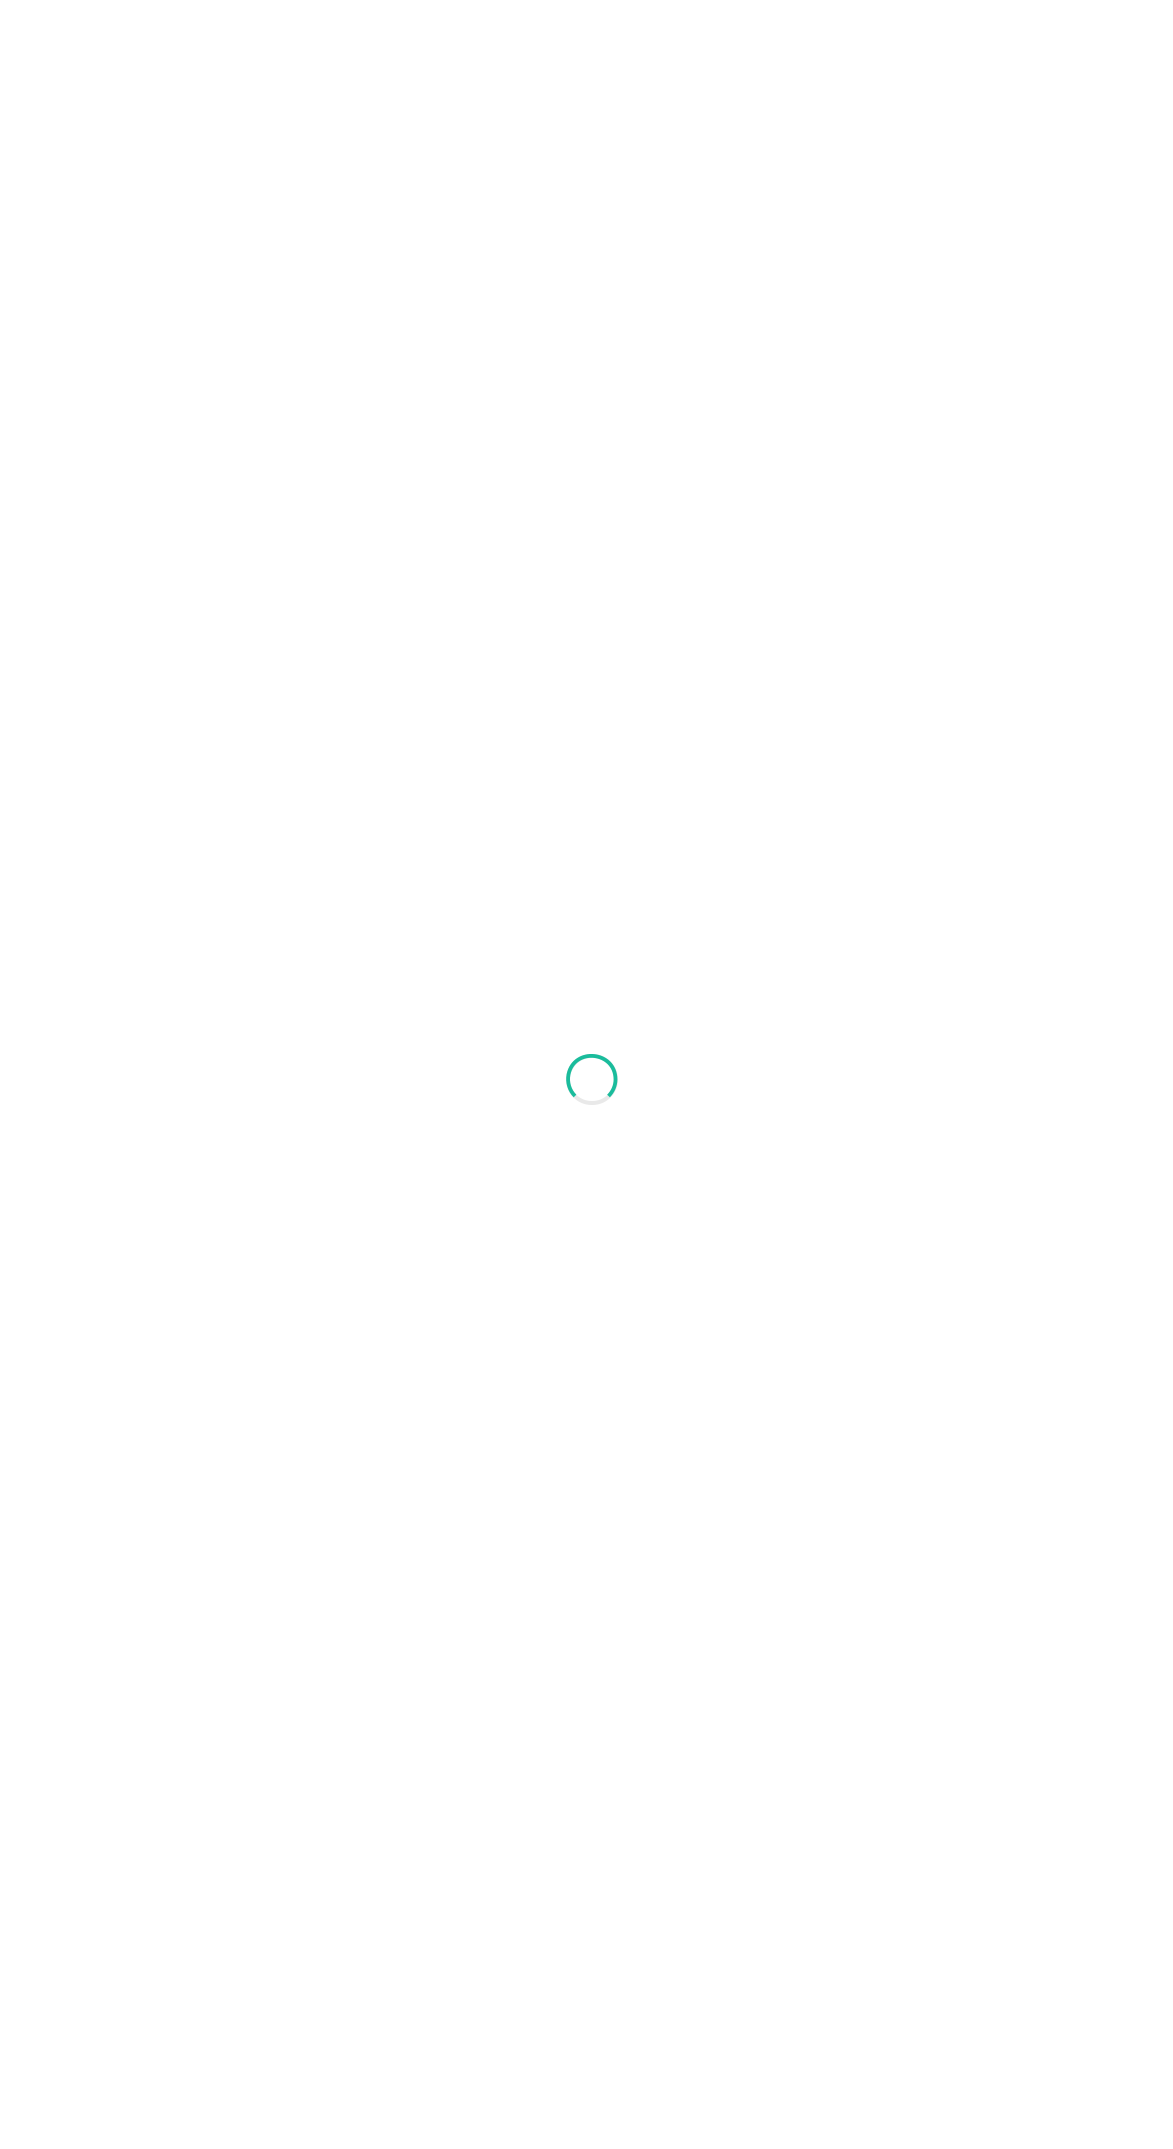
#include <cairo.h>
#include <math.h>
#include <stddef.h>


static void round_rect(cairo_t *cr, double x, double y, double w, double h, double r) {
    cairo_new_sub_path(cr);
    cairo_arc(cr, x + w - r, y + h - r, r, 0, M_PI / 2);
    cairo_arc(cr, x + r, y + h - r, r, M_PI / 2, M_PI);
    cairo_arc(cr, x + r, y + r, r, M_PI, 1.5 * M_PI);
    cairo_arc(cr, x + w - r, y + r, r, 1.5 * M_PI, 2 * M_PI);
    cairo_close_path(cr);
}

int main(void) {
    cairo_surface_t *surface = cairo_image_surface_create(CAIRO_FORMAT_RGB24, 1173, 2149);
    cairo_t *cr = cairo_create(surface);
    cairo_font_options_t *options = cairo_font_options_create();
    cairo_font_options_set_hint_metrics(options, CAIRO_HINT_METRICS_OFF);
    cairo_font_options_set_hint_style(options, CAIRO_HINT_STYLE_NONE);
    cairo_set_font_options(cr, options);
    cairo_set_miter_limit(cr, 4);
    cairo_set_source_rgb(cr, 1, 1, 1);
    cairo_paint(cr);
    round_rect(cr, 568, 1056, 48, 47, 23.5);
    cairo_set_source_rgb(cr, 0.914, 0.914, 0.914);
    cairo_set_line_width(cr, 4);
    cairo_stroke(cr);
    cairo_new_path(cr);
    cairo_move_to(cr, 575, 1096);
    cairo_curve_to(cr, 569.5, 1090.5, 567, 1082.5, 568.5, 1074.5);
    cairo_curve_to(cr, 574, 1047, 615.5, 1051, 615.5, 1079.5);
    cairo_curve_to(cr, 615.5, 1085.5, 613, 1091.5, 608.5, 1096);
    cairo_set_source_rgb(cr, 0.102, 0.737, 0.612);
    cairo_set_line_width(cr, 3.8);
    cairo_stroke(cr);
    cairo_surface_write_to_png(surface, "page.png");
    cairo_font_options_destroy(options);
    cairo_destroy(cr);
    cairo_surface_destroy(surface);
    return 0;
}
